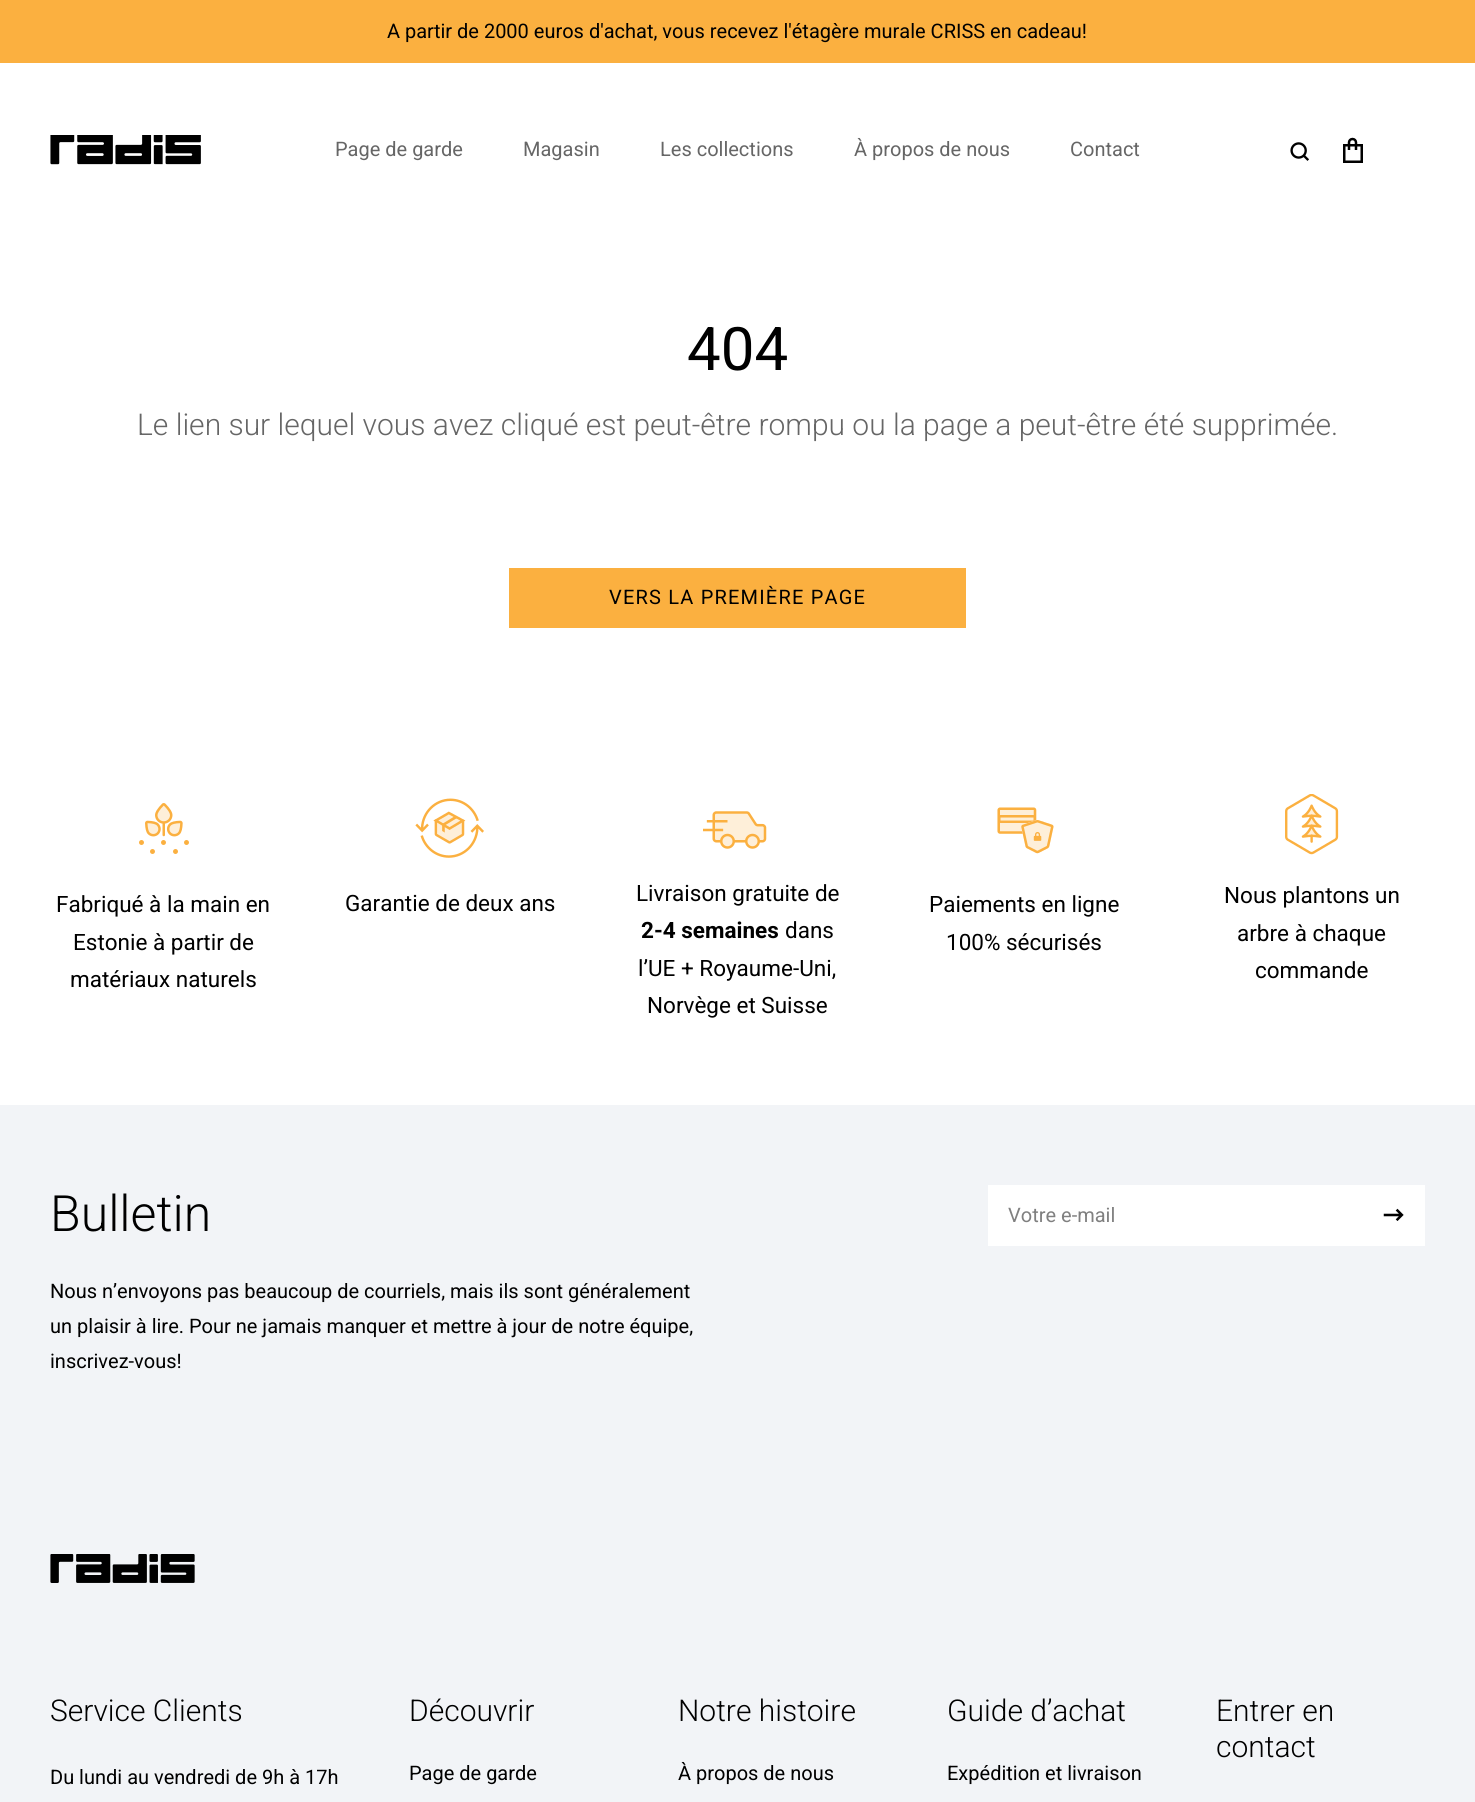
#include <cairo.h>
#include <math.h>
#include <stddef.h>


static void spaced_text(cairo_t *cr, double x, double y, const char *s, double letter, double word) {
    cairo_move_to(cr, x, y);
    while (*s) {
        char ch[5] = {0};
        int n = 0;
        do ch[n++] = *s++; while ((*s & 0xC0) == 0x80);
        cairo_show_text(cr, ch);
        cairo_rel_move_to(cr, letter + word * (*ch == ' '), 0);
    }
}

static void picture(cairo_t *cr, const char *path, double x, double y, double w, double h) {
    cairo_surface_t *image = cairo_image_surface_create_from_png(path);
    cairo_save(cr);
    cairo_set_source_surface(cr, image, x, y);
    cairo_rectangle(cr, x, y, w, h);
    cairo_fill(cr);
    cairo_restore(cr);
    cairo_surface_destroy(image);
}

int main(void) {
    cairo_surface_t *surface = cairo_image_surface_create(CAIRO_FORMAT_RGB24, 1475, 1802);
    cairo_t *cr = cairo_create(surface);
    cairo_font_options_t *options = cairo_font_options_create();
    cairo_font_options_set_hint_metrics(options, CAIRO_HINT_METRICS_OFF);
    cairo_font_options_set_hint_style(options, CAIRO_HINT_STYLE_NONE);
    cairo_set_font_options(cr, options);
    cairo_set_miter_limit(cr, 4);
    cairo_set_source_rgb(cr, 1, 1, 1);
    cairo_paint(cr);
    cairo_set_source_rgb(cr, 0.984, 0.69, 0.251);
    cairo_rectangle(cr, 0, 0, 1475, 63);
    cairo_fill(cr);
    cairo_select_font_face(cr, "Roboto", CAIRO_FONT_SLANT_NORMAL, CAIRO_FONT_WEIGHT_NORMAL);
    cairo_set_font_size(cr, 20);
    cairo_set_source_rgb(cr, 0, 0, 0);
    cairo_move_to(cr, 387, 38);
    cairo_show_text(cr, "A partir de 2000 euros d'achat, vous recevez l'étagère murale CRISS en cadeau!");
    picture(cr, "img1.png", 50, 135, 151, 30);
    cairo_set_source_rgb(cr, 0.4, 0.4, 0.4);
    cairo_move_to(cr, 335, 156);
    cairo_show_text(cr, "Page de garde");
    cairo_move_to(cr, 523, 156);
    cairo_show_text(cr, "Magasin");
    cairo_move_to(cr, 660, 156);
    cairo_show_text(cr, "Les collections");
    cairo_move_to(cr, 854, 156);
    cairo_show_text(cr, "À propos de nous");
    cairo_move_to(cr, 1070, 156);
    cairo_show_text(cr, "Contact");
    picture(cr, "img2.png", 1290, 142, 19, 19);
    cairo_new_path(cr);
    cairo_move_to(cr, 1356, 150);
    cairo_line_to(cr, 1356, 142.5);
    cairo_curve_to(cr, 1356, 140.5, 1354.5, 139, 1352.5, 139);
    cairo_curve_to(cr, 1350.5, 139, 1349, 140.5, 1349, 142.5);
    cairo_line_to(cr, 1349, 150);
    cairo_set_source_rgb(cr, 0, 0, 0);
    cairo_set_line_width(cr, 2.5);
    cairo_stroke(cr);
    cairo_rectangle(cr, 1344.25, 145.25, 17.5, 16.5);
    cairo_stroke(cr);
    cairo_set_font_size(cr, 60);
    cairo_move_to(cr, 687, 370);
    cairo_show_text(cr, "404");
    cairo_select_font_face(cr, "Roboto Light", CAIRO_FONT_SLANT_NORMAL, CAIRO_FONT_WEIGHT_NORMAL);
    cairo_set_font_size(cr, 30);
    cairo_set_source_rgb(cr, 0.4, 0.4, 0.4);
    cairo_move_to(cr, 137, 435);
    cairo_show_text(cr, "Le lien sur lequel vous avez cliqué est peut-être rompu ou la page a peut-être été supprimée.");
    cairo_set_source_rgb(cr, 0.984, 0.69, 0.251);
    cairo_rectangle(cr, 509, 568, 457, 60);
    cairo_fill(cr);
    cairo_select_font_face(cr, "Roboto", CAIRO_FONT_SLANT_NORMAL, CAIRO_FONT_WEIGHT_NORMAL);
    cairo_set_font_size(cr, 20);
    cairo_set_source_rgb(cr, 0, 0, 0);
    spaced_text(cr, 609, 604, "VERS LA PREMIÈRE PAGE", 1.2, 0);
    picture(cr, "img3.png", 139, 803, 50, 51);
    cairo_set_font_size(cr, 22.5);
    cairo_move_to(cr, 56, 912);
    cairo_show_text(cr, "Fabriqué à la main en");
    cairo_move_to(cr, 73, 950);
    cairo_show_text(cr, "Estonie à partir de");
    cairo_move_to(cr, 70, 987);
    cairo_show_text(cr, "matériaux naturels");
    picture(cr, "img4.png", 415, 798, 69, 60);
    cairo_move_to(cr, 345, 911);
    cairo_show_text(cr, "Garantie de deux ans");
    picture(cr, "img5.png", 703, 811, 64, 38);
    cairo_move_to(cr, 636, 901);
    cairo_show_text(cr, "Livraison gratuite de");
    cairo_select_font_face(cr, "Roboto", CAIRO_FONT_SLANT_NORMAL, CAIRO_FONT_WEIGHT_BOLD);
    cairo_move_to(cr, 641, 938);
    cairo_show_text(cr, "2-4 semaines");
    cairo_select_font_face(cr, "Roboto", CAIRO_FONT_SLANT_NORMAL, CAIRO_FONT_WEIGHT_NORMAL);
    cairo_move_to(cr, 785, 938);
    cairo_show_text(cr, "dans");
    cairo_move_to(cr, 638, 976);
    cairo_show_text(cr, "l’UE + Royaume-Uni,");
    cairo_move_to(cr, 647, 1013);
    cairo_show_text(cr, "Norvège et Suisse");
    picture(cr, "img6.png", 997, 807, 57, 47);
    cairo_move_to(cr, 929, 912);
    cairo_show_text(cr, "Paiements en ligne");
    cairo_move_to(cr, 946, 950);
    cairo_show_text(cr, "100% sécurisés");
    picture(cr, "img7.png", 1285, 794, 54, 61);
    cairo_move_to(cr, 1224, 903);
    cairo_show_text(cr, "Nous plantons un");
    cairo_move_to(cr, 1237, 941);
    cairo_show_text(cr, "arbre à chaque");
    cairo_move_to(cr, 1255, 978);
    cairo_show_text(cr, "commande");
    cairo_set_source_rgb(cr, 0.949, 0.957, 0.965);
    cairo_rectangle(cr, 0, 1105, 1475, 697);
    cairo_fill(cr);
    cairo_select_font_face(cr, "Roboto Light", CAIRO_FONT_SLANT_NORMAL, CAIRO_FONT_WEIGHT_NORMAL);
    cairo_set_font_size(cr, 50);
    cairo_set_source_rgb(cr, 0, 0, 0);
    cairo_move_to(cr, 50, 1231);
    cairo_show_text(cr, "Bulletin");
    cairo_select_font_face(cr, "Roboto", CAIRO_FONT_SLANT_NORMAL, CAIRO_FONT_WEIGHT_NORMAL);
    cairo_set_font_size(cr, 20);
    cairo_move_to(cr, 50, 1298);
    cairo_show_text(cr, "Nous n’envoyons pas beaucoup de courriels, mais ils sont généralement");
    cairo_move_to(cr, 50, 1333);
    cairo_show_text(cr, "un plaisir à lire. Pour ne jamais manquer et mettre à jour de notre équipe,");
    cairo_move_to(cr, 50, 1368);
    cairo_show_text(cr, "inscrivez-vous!");
    cairo_set_source_rgb(cr, 1, 1, 1);
    cairo_rectangle(cr, 988, 1185, 437, 61);
    cairo_fill(cr);
    cairo_set_source_rgb(cr, 0.502, 0.502, 0.502);
    cairo_move_to(cr, 1008, 1222);
    cairo_show_text(cr, "Votre e-mail");
    picture(cr, "img8.png", 1383, 1208, 21, 13);
    picture(cr, "img9.png", 50, 1554, 145, 29);
    cairo_select_font_face(cr, "Roboto Light", CAIRO_FONT_SLANT_NORMAL, CAIRO_FONT_WEIGHT_NORMAL);
    cairo_set_font_size(cr, 30);
    cairo_set_source_rgb(cr, 0, 0, 0);
    cairo_move_to(cr, 50, 1721);
    cairo_show_text(cr, "Service Clients");
    cairo_select_font_face(cr, "Roboto", CAIRO_FONT_SLANT_NORMAL, CAIRO_FONT_WEIGHT_NORMAL);
    cairo_set_font_size(cr, 20);
    cairo_move_to(cr, 50, 1784);
    cairo_show_text(cr, "Du lundi au vendredi de 9h à 17h");
    cairo_select_font_face(cr, "Roboto Light", CAIRO_FONT_SLANT_NORMAL, CAIRO_FONT_WEIGHT_NORMAL);
    cairo_set_font_size(cr, 30);
    cairo_move_to(cr, 409, 1721);
    cairo_show_text(cr, "Découvrir");
    cairo_select_font_face(cr, "Roboto", CAIRO_FONT_SLANT_NORMAL, CAIRO_FONT_WEIGHT_NORMAL);
    cairo_set_font_size(cr, 20);
    cairo_move_to(cr, 409, 1780);
    cairo_show_text(cr, "Page de garde");
    cairo_select_font_face(cr, "Roboto Light", CAIRO_FONT_SLANT_NORMAL, CAIRO_FONT_WEIGHT_NORMAL);
    cairo_set_font_size(cr, 30);
    cairo_move_to(cr, 678, 1721);
    cairo_show_text(cr, "Notre histoire");
    cairo_select_font_face(cr, "Roboto", CAIRO_FONT_SLANT_NORMAL, CAIRO_FONT_WEIGHT_NORMAL);
    cairo_set_font_size(cr, 20);
    cairo_move_to(cr, 678, 1780);
    cairo_show_text(cr, "À propos de nous");
    cairo_select_font_face(cr, "Roboto Light", CAIRO_FONT_SLANT_NORMAL, CAIRO_FONT_WEIGHT_NORMAL);
    cairo_set_font_size(cr, 30);
    cairo_move_to(cr, 947, 1721);
    cairo_show_text(cr, "Guide d’achat");
    cairo_select_font_face(cr, "Roboto", CAIRO_FONT_SLANT_NORMAL, CAIRO_FONT_WEIGHT_NORMAL);
    cairo_set_font_size(cr, 20);
    cairo_move_to(cr, 947, 1780);
    cairo_show_text(cr, "Expédition et livraison");
    cairo_select_font_face(cr, "Roboto Light", CAIRO_FONT_SLANT_NORMAL, CAIRO_FONT_WEIGHT_NORMAL);
    cairo_set_font_size(cr, 30);
    cairo_move_to(cr, 1216, 1721);
    cairo_show_text(cr, "Entrer en");
    cairo_move_to(cr, 1216, 1757);
    cairo_show_text(cr, "contact");
    cairo_surface_write_to_png(surface, "page.png");
    cairo_font_options_destroy(options);
    cairo_destroy(cr);
    cairo_surface_destroy(surface);
    return 0;
}
